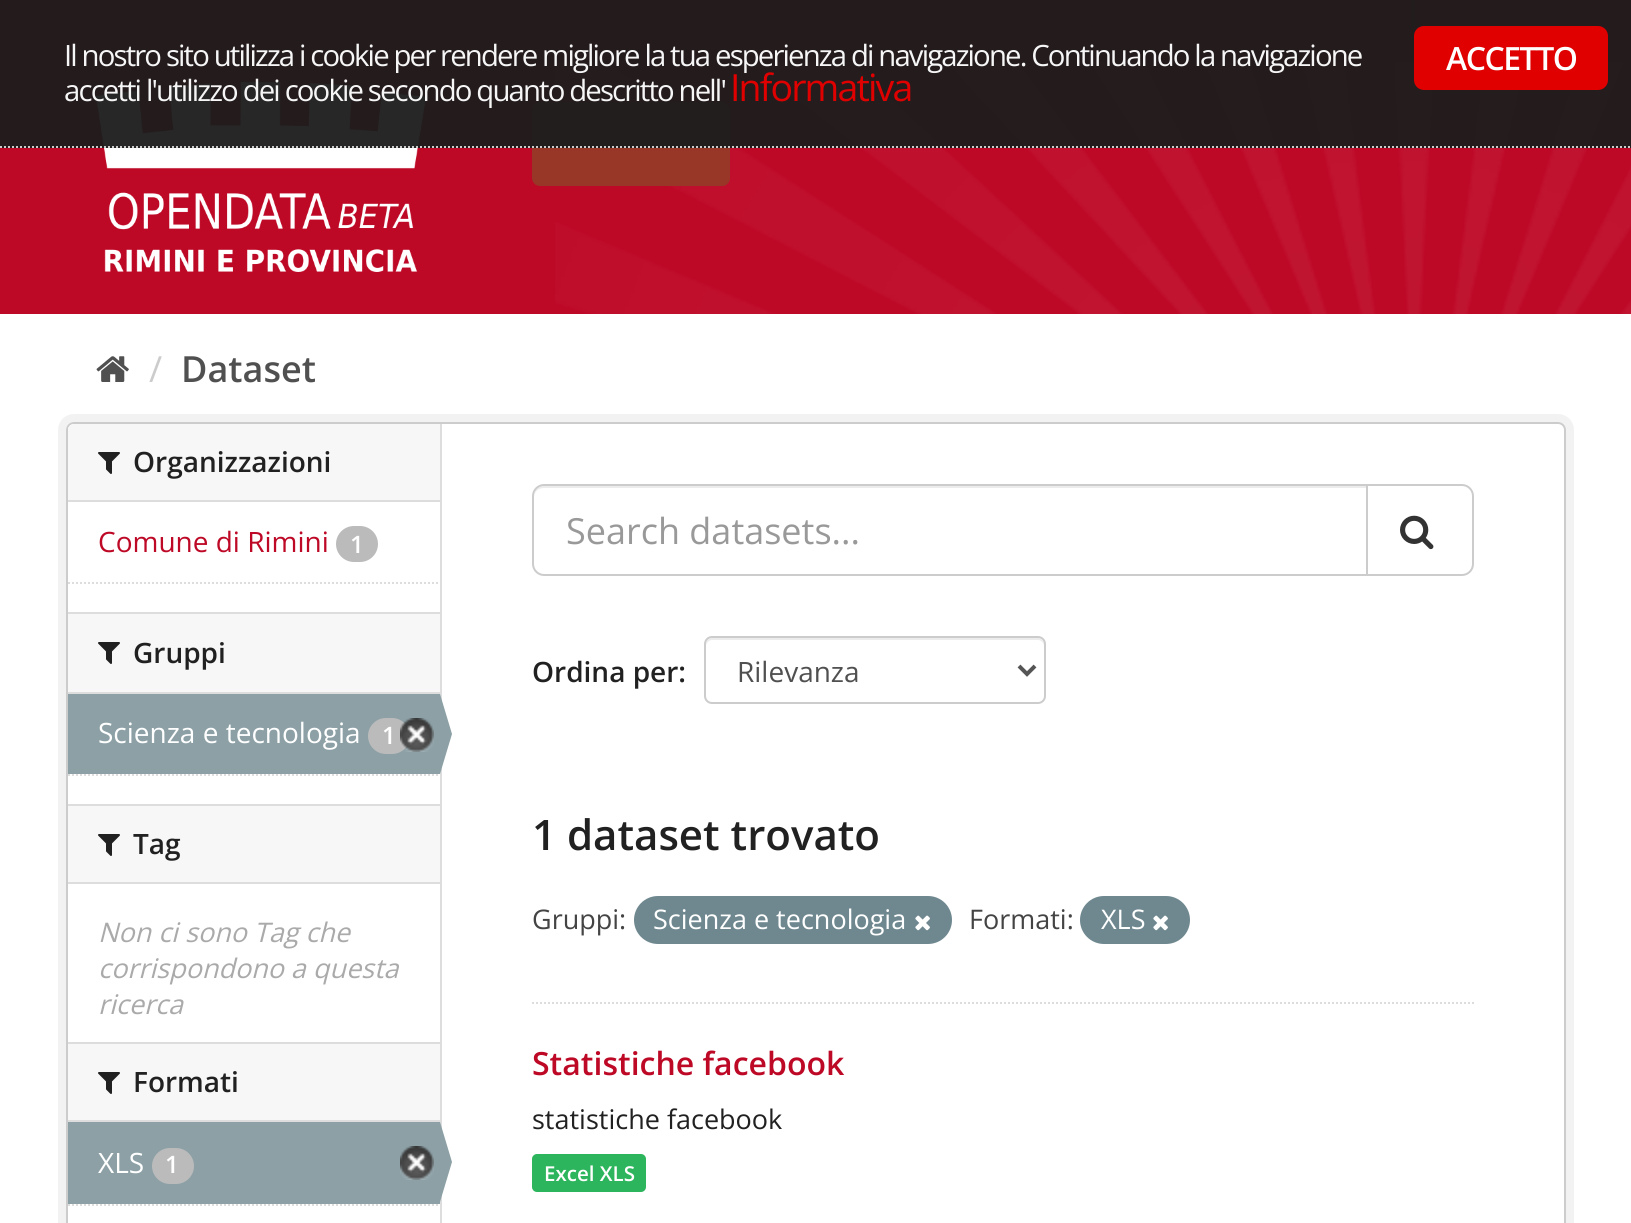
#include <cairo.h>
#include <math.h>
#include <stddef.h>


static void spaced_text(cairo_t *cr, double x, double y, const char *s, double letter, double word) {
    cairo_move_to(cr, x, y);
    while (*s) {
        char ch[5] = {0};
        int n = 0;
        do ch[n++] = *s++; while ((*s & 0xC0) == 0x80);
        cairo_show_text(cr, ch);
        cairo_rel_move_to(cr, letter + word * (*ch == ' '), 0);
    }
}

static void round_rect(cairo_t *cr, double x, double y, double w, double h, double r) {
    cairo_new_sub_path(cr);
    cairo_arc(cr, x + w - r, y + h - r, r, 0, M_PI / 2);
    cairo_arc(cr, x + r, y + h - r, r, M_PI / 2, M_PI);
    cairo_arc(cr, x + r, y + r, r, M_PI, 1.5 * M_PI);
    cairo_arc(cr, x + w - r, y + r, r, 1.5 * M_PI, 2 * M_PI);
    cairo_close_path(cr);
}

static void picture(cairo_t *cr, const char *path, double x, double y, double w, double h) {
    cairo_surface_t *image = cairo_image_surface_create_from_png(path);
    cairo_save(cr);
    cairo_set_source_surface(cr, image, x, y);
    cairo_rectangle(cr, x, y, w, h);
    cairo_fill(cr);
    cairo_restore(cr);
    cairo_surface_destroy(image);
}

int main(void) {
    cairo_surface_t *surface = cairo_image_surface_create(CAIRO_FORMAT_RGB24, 1631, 1223);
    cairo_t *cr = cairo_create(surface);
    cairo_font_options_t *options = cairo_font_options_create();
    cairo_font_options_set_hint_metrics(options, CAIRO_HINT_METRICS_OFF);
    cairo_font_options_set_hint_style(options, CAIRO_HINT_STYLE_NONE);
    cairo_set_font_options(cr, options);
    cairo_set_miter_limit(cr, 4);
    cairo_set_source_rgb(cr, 1, 1, 1);
    cairo_paint(cr);
    cairo_set_source_rgb(cr, 0.741, 0.035, 0.149);
    cairo_rectangle(cr, 0, 0, 1631, 314);
    cairo_fill(cr);
    cairo_set_source_rgb(cr, 0.518, 0.184, 0.133);
    cairo_rectangle(cr, 1412, 0, 2, 62);
    cairo_fill(cr);
    picture(cr, "img1.png", 555, 62, 1076, 252);
    picture(cr, "img2.png", 96, 82, 330, 190);
    cairo_set_source_rgb(cr, 0.596, 0.212, 0.153);
    round_rect(cr, 532, 102, 198, 84, 8);
    cairo_fill(cr);
    cairo_set_source_rgba(cr, 0.114, 0.114, 0.114, 0.95);
    cairo_rectangle(cr, 0, 0, 1631, 148);
    cairo_fill(cr);
    cairo_new_path(cr);
    cairo_move_to(cr, 0, 147);
    cairo_line_to(cr, 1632, 147);
    cairo_set_source_rgb(cr, 0.8, 0.8, 0.8);
    cairo_set_dash(cr, (double[]){2, 2}, 2, 0);
    cairo_stroke(cr);
    cairo_select_font_face(cr, "Open Sans", CAIRO_FONT_SLANT_NORMAL, CAIRO_FONT_WEIGHT_NORMAL);
    cairo_set_font_size(cr, 29.35);
    cairo_set_source_rgb(cr, 0.961, 0.961, 0.961);
    spaced_text(cr, 64, 66, "Il nostro sito utilizza i cookie per rendere migliore la tua esperienza di navigazione. Continuando la navigazione", -1.87, 0);
    spaced_text(cr, 64, 101, "accetti l'utilizzo dei cookie secondo quanto descritto nell'", -1.87, 0);
    cairo_set_font_size(cr, 37.5);
    cairo_set_source_rgb(cr, 0.878, 0, 0);
    spaced_text(cr, 730, 101, "Informativa", -1.87, 0);
    round_rect(cr, 1414, 26, 194, 64, 10);
    cairo_fill(cr);
    cairo_select_font_face(cr, "Open Sans SemiBold", CAIRO_FONT_SLANT_NORMAL, CAIRO_FONT_WEIGHT_NORMAL);
    cairo_set_font_size(cr, 32);
    cairo_set_source_rgb(cr, 1, 1, 1);
    spaced_text(cr, 1446, 70, "ACCETTO", -1.5, 0);
    picture(cr, "img3.png", 96, 356, 33, 26);
    cairo_select_font_face(cr, "Open Sans", CAIRO_FONT_SLANT_NORMAL, CAIRO_FONT_WEIGHT_NORMAL);
    cairo_set_font_size(cr, 36);
    cairo_set_source_rgb(cr, 0.8, 0.8, 0.8);
    cairo_move_to(cr, 149, 382);
    cairo_show_text(cr, "/");
    cairo_select_font_face(cr, "Open Sans SemiBold", CAIRO_FONT_SLANT_NORMAL, CAIRO_FONT_WEIGHT_NORMAL);
    cairo_set_source_rgb(cr, 0.314, 0.314, 0.314);
    cairo_move_to(cr, 181, 382);
    cairo_show_text(cr, "Dataset");
    round_rect(cr, 62, 418, 1508, 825, 12);
    cairo_set_source_rgb(cr, 0.949, 0.949, 0.949);
    cairo_set_line_width(cr, 8);
    cairo_set_dash(cr, NULL, 0, 0);
    cairo_stroke(cr);
    cairo_set_source_rgb(cr, 1, 1, 1);
    round_rect(cr, 67, 423, 1498, 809, 7);
    cairo_fill_preserve(cr);
    cairo_set_source_rgb(cr, 0.8, 0.8, 0.8);
    cairo_set_line_width(cr, 2);
    cairo_stroke(cr);
    cairo_set_source_rgb(cr, 0.965, 0.965, 0.965);
    cairo_new_path(cr);
    cairo_move_to(cr, 74, 424);
    cairo_line_to(cr, 440, 424);
    cairo_line_to(cr, 440, 502);
    cairo_line_to(cr, 68, 502);
    cairo_line_to(cr, 68, 430);
    cairo_curve_to(cr, 68, 426.5, 70.5, 424, 74, 424);
    cairo_close_path(cr);
    cairo_fill(cr);
    cairo_set_source_rgb(cr, 0.867, 0.867, 0.867);
    cairo_rectangle(cr, 68, 500, 372, 2);
    cairo_fill(cr);
    picture(cr, "img4.png", 98, 452, 22, 22);
    cairo_set_font_size(cr, 28);
    cairo_set_source_rgb(cr, 0.129, 0.129, 0.129);
    cairo_move_to(cr, 133, 472);
    cairo_show_text(cr, "Organizzazioni");
    cairo_select_font_face(cr, "Open Sans", CAIRO_FONT_SLANT_NORMAL, CAIRO_FONT_WEIGHT_NORMAL);
    cairo_set_source_rgb(cr, 0.741, 0.035, 0.149);
    cairo_move_to(cr, 98, 552);
    cairo_show_text(cr, "Comune di Rimini");
    cairo_set_source_rgb(cr, 0.733, 0.733, 0.733);
    round_rect(cr, 336, 526, 42, 36, 18);
    cairo_fill(cr);
    cairo_select_font_face(cr, "Open Sans SemiBold", CAIRO_FONT_SLANT_NORMAL, CAIRO_FONT_WEIGHT_NORMAL);
    cairo_set_font_size(cr, 24);
    cairo_set_source_rgb(cr, 1, 1, 1);
    cairo_move_to(cr, 350, 553);
    cairo_show_text(cr, "1");
    cairo_new_path(cr);
    cairo_move_to(cr, 68, 583);
    cairo_line_to(cr, 440, 583);
    cairo_set_source_rgb(cr, 0.867, 0.867, 0.867);
    cairo_set_dash(cr, (double[]){2, 2}, 2, 0);
    cairo_stroke(cr);
    cairo_set_source_rgb(cr, 0.965, 0.965, 0.965);
    cairo_rectangle(cr, 68, 614, 372, 78);
    cairo_fill(cr);
    cairo_set_source_rgb(cr, 0.867, 0.867, 0.867);
    cairo_rectangle(cr, 68, 612, 372, 2);
    cairo_fill(cr);
    cairo_rectangle(cr, 68, 692, 372, 2);
    cairo_fill(cr);
    picture(cr, "img4.png", 98, 642, 22, 22);
    cairo_set_font_size(cr, 28);
    cairo_set_source_rgb(cr, 0.129, 0.129, 0.129);
    cairo_move_to(cr, 133, 663);
    cairo_show_text(cr, "Gruppi");
    cairo_set_source_rgb(cr, 0.549, 0.627, 0.651);
    cairo_rectangle(cr, 68, 694, 372, 80);
    cairo_fill(cr);
    cairo_select_font_face(cr, "Open Sans", CAIRO_FONT_SLANT_NORMAL, CAIRO_FONT_WEIGHT_NORMAL);
    cairo_set_source_rgb(cr, 1, 1, 1);
    cairo_move_to(cr, 98, 743);
    cairo_show_text(cr, "Scienza e tecnologia");
    cairo_set_source_rgb(cr, 0.733, 0.733, 0.733);
    round_rect(cr, 368, 718, 42, 36, 18);
    cairo_fill(cr);
    cairo_select_font_face(cr, "Open Sans SemiBold", CAIRO_FONT_SLANT_NORMAL, CAIRO_FONT_WEIGHT_NORMAL);
    cairo_set_font_size(cr, 24);
    cairo_set_source_rgb(cr, 1, 1, 1);
    cairo_move_to(cr, 382, 744);
    cairo_show_text(cr, "1");
    picture(cr, "img5.png", 400, 718, 34, 34);
    cairo_set_source_rgb(cr, 0.867, 0.867, 0.867);
    cairo_rectangle(cr, 440, 424, 2, 799);
    cairo_fill(cr);
    cairo_set_source_rgb(cr, 0.549, 0.627, 0.651);
    cairo_new_path(cr);
    cairo_move_to(cr, 440, 774);
    cairo_line_to(cr, 440, 694);
    cairo_line_to(cr, 452, 734);
    cairo_close_path(cr);
    cairo_fill(cr);
    cairo_new_path(cr);
    cairo_move_to(cr, 68, 775);
    cairo_line_to(cr, 440, 775);
    cairo_set_source_rgb(cr, 0.867, 0.867, 0.867);
    cairo_stroke(cr);
    cairo_set_source_rgb(cr, 0.965, 0.965, 0.965);
    cairo_rectangle(cr, 68, 806, 372, 76);
    cairo_fill(cr);
    cairo_set_source_rgb(cr, 0.867, 0.867, 0.867);
    cairo_rectangle(cr, 68, 804, 372, 2);
    cairo_fill(cr);
    cairo_rectangle(cr, 68, 882, 372, 2);
    cairo_fill(cr);
    picture(cr, "img4.png", 98, 834, 22, 22);
    cairo_set_font_size(cr, 28);
    cairo_set_source_rgb(cr, 0.129, 0.129, 0.129);
    cairo_move_to(cr, 133, 854);
    cairo_show_text(cr, "Tag");
    cairo_select_font_face(cr, "Open Sans", CAIRO_FONT_SLANT_ITALIC, CAIRO_FONT_WEIGHT_NORMAL);
    cairo_set_font_size(cr, 27);
    cairo_set_source_rgb(cr, 0.667, 0.667, 0.667);
    cairo_move_to(cr, 98, 942);
    cairo_show_text(cr, "Non ci sono Tag che");
    cairo_move_to(cr, 98, 978);
    cairo_show_text(cr, "corrispondono a questa");
    cairo_move_to(cr, 98, 1014);
    cairo_show_text(cr, "ricerca");
    cairo_set_source_rgb(cr, 0.965, 0.965, 0.965);
    cairo_rectangle(cr, 68, 1044, 372, 76);
    cairo_fill(cr);
    cairo_set_source_rgb(cr, 0.867, 0.867, 0.867);
    cairo_rectangle(cr, 68, 1042, 372, 2);
    cairo_fill(cr);
    cairo_rectangle(cr, 68, 1120, 372, 2);
    cairo_fill(cr);
    picture(cr, "img4.png", 98, 1072, 22, 22);
    cairo_select_font_face(cr, "Open Sans SemiBold", CAIRO_FONT_SLANT_NORMAL, CAIRO_FONT_WEIGHT_NORMAL);
    cairo_set_font_size(cr, 28);
    cairo_set_source_rgb(cr, 0.129, 0.129, 0.129);
    cairo_move_to(cr, 133, 1092);
    cairo_show_text(cr, "Formati");
    cairo_set_source_rgb(cr, 0.549, 0.627, 0.651);
    cairo_rectangle(cr, 68, 1122, 372, 82);
    cairo_fill(cr);
    cairo_select_font_face(cr, "Open Sans", CAIRO_FONT_SLANT_NORMAL, CAIRO_FONT_WEIGHT_NORMAL);
    cairo_set_source_rgb(cr, 1, 1, 1);
    cairo_move_to(cr, 98, 1173);
    cairo_show_text(cr, "XLS");
    cairo_set_source_rgb(cr, 0.733, 0.733, 0.733);
    round_rect(cr, 152, 1148, 42, 36, 18);
    cairo_fill(cr);
    cairo_select_font_face(cr, "Open Sans SemiBold", CAIRO_FONT_SLANT_NORMAL, CAIRO_FONT_WEIGHT_NORMAL);
    cairo_set_font_size(cr, 24);
    cairo_set_source_rgb(cr, 1, 1, 1);
    cairo_move_to(cr, 165, 1173);
    cairo_show_text(cr, "1");
    picture(cr, "img6.png", 400, 1146, 34, 34);
    cairo_set_source_rgb(cr, 0.549, 0.627, 0.651);
    cairo_new_path(cr);
    cairo_move_to(cr, 440, 1202);
    cairo_line_to(cr, 440, 1122);
    cairo_line_to(cr, 452, 1162);
    cairo_close_path(cr);
    cairo_fill(cr);
    cairo_new_path(cr);
    cairo_move_to(cr, 68, 1205);
    cairo_line_to(cr, 440, 1205);
    cairo_set_source_rgb(cr, 0.867, 0.867, 0.867);
    cairo_stroke(cr);
    cairo_new_path(cr);
    cairo_move_to(cr, 532, 1003);
    cairo_line_to(cr, 1474, 1003);
    cairo_stroke(cr);
    cairo_set_source_rgb(cr, 0.925, 0.925, 0.925);
    cairo_new_path(cr);
    cairo_move_to(cr, 544, 488);
    cairo_line_to(cr, 1366, 488);
    cairo_line_to(cr, 1366, 486);
    cairo_line_to(cr, 544, 486);
    cairo_curve_to(cr, 537, 486, 534, 492, 534, 498);
    cairo_curve_to(cr, 534, 492, 538, 488, 544, 488);
    cairo_close_path(cr);
    cairo_fill(cr);
    cairo_new_path(cr);
    cairo_move_to(cr, 544, 485);
    cairo_line_to(cr, 1367, 485);
    cairo_line_to(cr, 1367, 575);
    cairo_line_to(cr, 544, 575);
    cairo_curve_to(cr, 538, 575, 533, 570, 533, 564);
    cairo_line_to(cr, 533, 496);
    cairo_curve_to(cr, 533, 490, 538, 485, 544, 485);
    cairo_close_path(cr);
    cairo_set_source_rgb(cr, 0.8, 0.8, 0.8);
    cairo_set_dash(cr, NULL, 0, 0);
    cairo_stroke(cr);
    cairo_select_font_face(cr, "Open Sans", CAIRO_FONT_SLANT_NORMAL, CAIRO_FONT_WEIGHT_NORMAL);
    cairo_set_font_size(cr, 36);
    cairo_set_source_rgb(cr, 0.6, 0.6, 0.6);
    cairo_move_to(cr, 566, 544);
    cairo_show_text(cr, "Search datasets...");
    cairo_set_source_rgb(cr, 1, 1, 1);
    cairo_new_path(cr);
    cairo_move_to(cr, 1367, 485);
    cairo_line_to(cr, 1462, 485);
    cairo_curve_to(cr, 1468, 485, 1473, 490, 1473, 496);
    cairo_line_to(cr, 1473, 564);
    cairo_curve_to(cr, 1473, 570, 1468, 575, 1462, 575);
    cairo_line_to(cr, 1367, 575);
    cairo_close_path(cr);
    cairo_fill_preserve(cr);
    cairo_set_source_rgb(cr, 0.8, 0.8, 0.8);
    cairo_stroke(cr);
    picture(cr, "img7.png", 1400, 515, 34, 35);
    cairo_select_font_face(cr, "Open Sans SemiBold", CAIRO_FONT_SLANT_NORMAL, CAIRO_FONT_WEIGHT_NORMAL);
    cairo_set_font_size(cr, 28);
    cairo_set_source_rgb(cr, 0.129, 0.129, 0.129);
    cairo_move_to(cr, 532, 682);
    cairo_show_text(cr, "Ordina per:");
    cairo_set_source_rgb(cr, 0.925, 0.925, 0.925);
    cairo_new_path(cr);
    cairo_move_to(cr, 712, 640);
    cairo_line_to(cr, 1038, 640);
    cairo_curve_to(cr, 1041, 640, 1044, 643, 1044, 646);
    cairo_line_to(cr, 1044, 644);
    cairo_curve_to(cr, 1044, 641, 1041, 638, 1038, 638);
    cairo_line_to(cr, 712, 638);
    cairo_curve_to(cr, 709, 638, 706, 641, 706, 644);
    cairo_line_to(cr, 706, 646);
    cairo_curve_to(cr, 706, 643, 709, 640, 712, 640);
    cairo_close_path(cr);
    cairo_fill(cr);
    round_rect(cr, 705, 637, 340, 66, 7);
    cairo_set_source_rgb(cr, 0.8, 0.8, 0.8);
    cairo_stroke(cr);
    cairo_new_path(cr);
    cairo_move_to(cr, 1019, 666);
    cairo_line_to(cr, 1027, 674);
    cairo_line_to(cr, 1035, 666);
    cairo_set_source_rgb(cr, 0.333, 0.333, 0.333);
    cairo_set_line_width(cr, 4);
    cairo_stroke(cr);
    cairo_select_font_face(cr, "Open Sans", CAIRO_FONT_SLANT_NORMAL, CAIRO_FONT_WEIGHT_NORMAL);
    cairo_set_source_rgb(cr, 0.314, 0.314, 0.314);
    cairo_move_to(cr, 737, 682);
    cairo_show_text(cr, "Rilevanza");
    cairo_select_font_face(cr, "Open Sans SemiBold", CAIRO_FONT_SLANT_NORMAL, CAIRO_FONT_WEIGHT_NORMAL);
    cairo_set_font_size(cr, 42);
    cairo_set_source_rgb(cr, 0.129, 0.129, 0.129);
    cairo_move_to(cr, 532, 850);
    cairo_show_text(cr, "1 dataset trovato");
    cairo_select_font_face(cr, "Open Sans", CAIRO_FONT_SLANT_NORMAL, CAIRO_FONT_WEIGHT_NORMAL);
    cairo_set_font_size(cr, 27);
    cairo_set_source_rgb(cr, 0.267, 0.267, 0.267);
    cairo_move_to(cr, 532, 929);
    cairo_show_text(cr, "Gruppi:");
    cairo_set_source_rgb(cr, 0.435, 0.533, 0.565);
    round_rect(cr, 634, 896, 318, 48, 24);
    cairo_fill(cr);
    cairo_set_source_rgb(cr, 1, 1, 1);
    cairo_move_to(cr, 653, 929);
    cairo_show_text(cr, "Scienza e tecnologia");
    picture(cr, "img8.png", 915, 915, 15, 16);
    cairo_set_source_rgb(cr, 0.267, 0.267, 0.267);
    cairo_move_to(cr, 969, 929);
    cairo_show_text(cr, "Formati:");
    cairo_set_source_rgb(cr, 0.435, 0.533, 0.565);
    round_rect(cr, 1080, 896, 110, 48, 24);
    cairo_fill(cr);
    cairo_set_source_rgb(cr, 1, 1, 1);
    cairo_move_to(cr, 1101, 929);
    cairo_show_text(cr, "XLS");
    picture(cr, "img8.png", 1153, 915, 15, 16);
    cairo_select_font_face(cr, "Open Sans SemiBold", CAIRO_FONT_SLANT_NORMAL, CAIRO_FONT_WEIGHT_NORMAL);
    cairo_set_font_size(cr, 32);
    cairo_set_source_rgb(cr, 0.741, 0.035, 0.149);
    cairo_move_to(cr, 532, 1075);
    cairo_show_text(cr, "Statistiche facebook");
    cairo_select_font_face(cr, "Open Sans", CAIRO_FONT_SLANT_NORMAL, CAIRO_FONT_WEIGHT_NORMAL);
    cairo_set_font_size(cr, 27);
    cairo_set_source_rgb(cr, 0.129, 0.129, 0.129);
    cairo_move_to(cr, 532, 1129);
    cairo_show_text(cr, "statistiche facebook");
    cairo_set_source_rgb(cr, 0.176, 0.71, 0.365);
    round_rect(cr, 532, 1154, 114, 38, 5);
    cairo_fill(cr);
    cairo_select_font_face(cr, "Open Sans SemiBold", CAIRO_FONT_SLANT_NORMAL, CAIRO_FONT_WEIGHT_NORMAL);
    cairo_set_font_size(cr, 20.5);
    cairo_set_source_rgb(cr, 1, 1, 1);
    cairo_move_to(cr, 544, 1181);
    cairo_show_text(cr, "Excel XLS");
    cairo_surface_write_to_png(surface, "page.png");
    cairo_font_options_destroy(options);
    cairo_destroy(cr);
    cairo_surface_destroy(surface);
    return 0;
}
